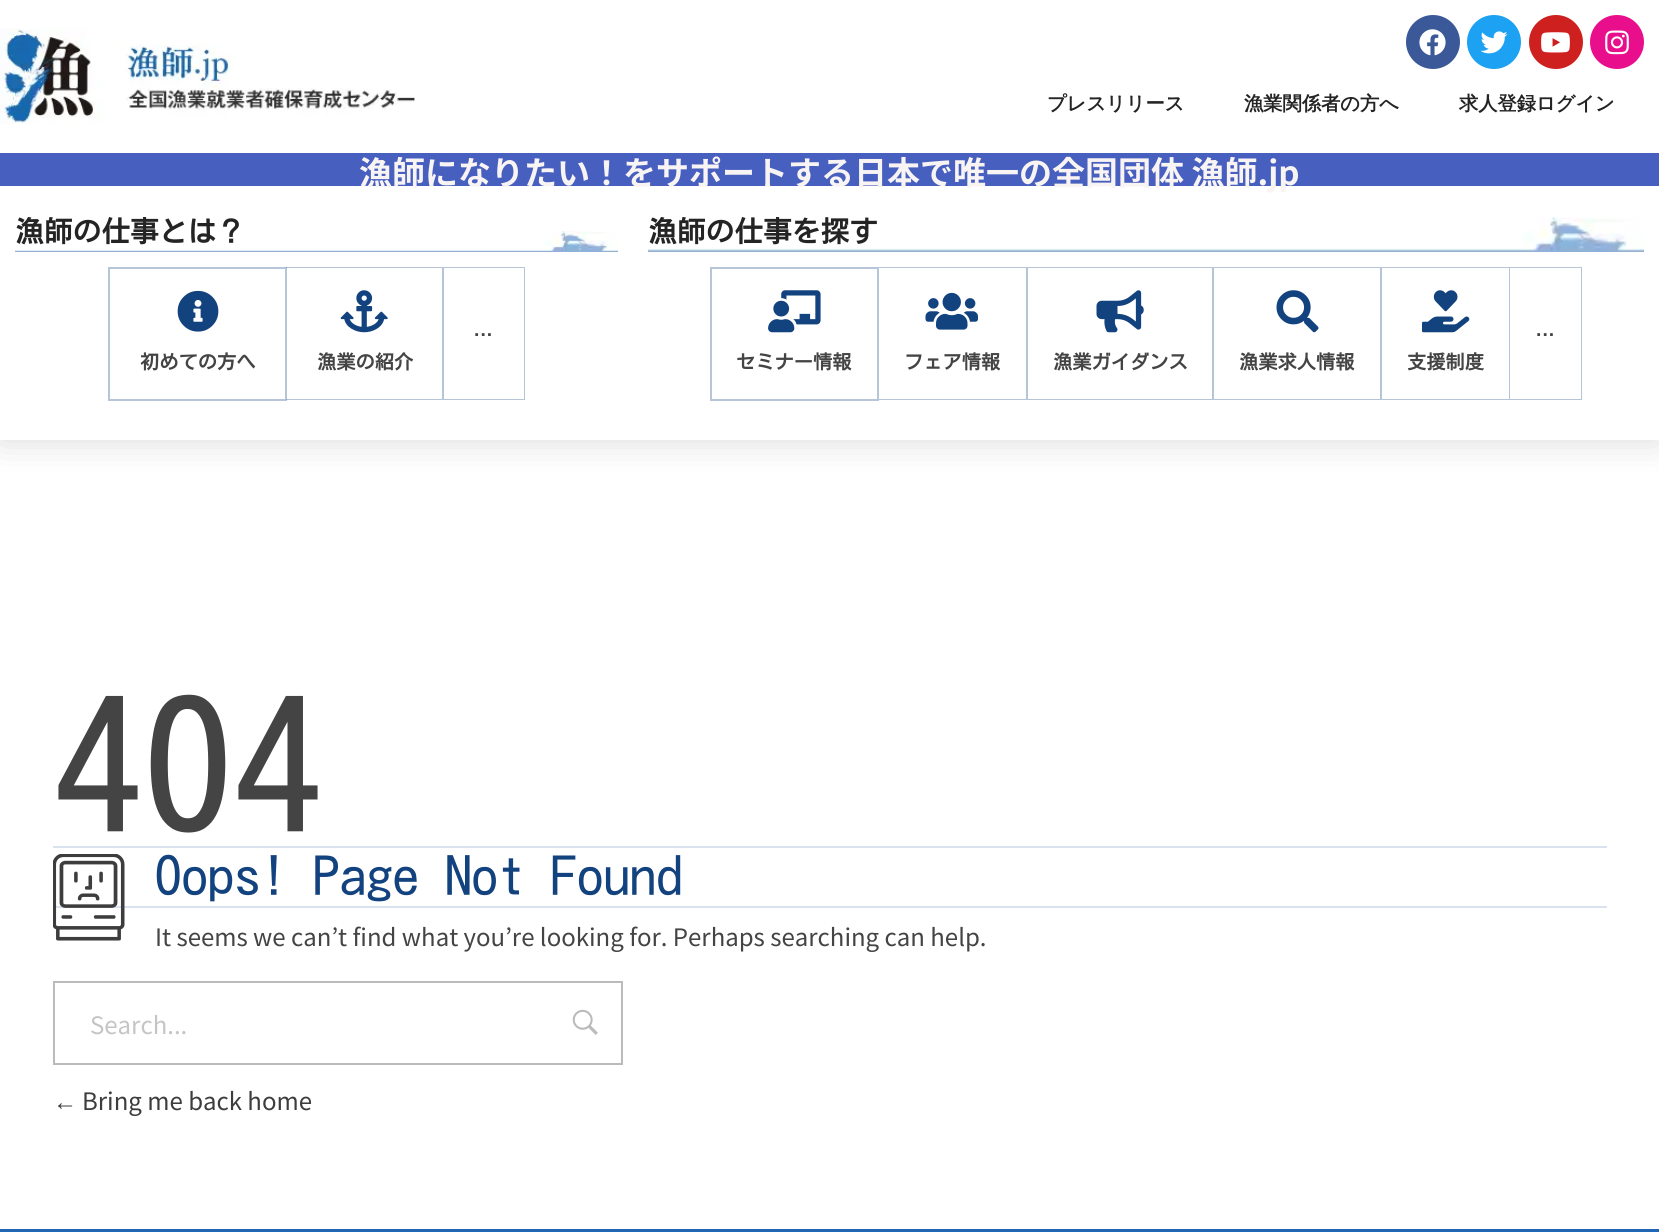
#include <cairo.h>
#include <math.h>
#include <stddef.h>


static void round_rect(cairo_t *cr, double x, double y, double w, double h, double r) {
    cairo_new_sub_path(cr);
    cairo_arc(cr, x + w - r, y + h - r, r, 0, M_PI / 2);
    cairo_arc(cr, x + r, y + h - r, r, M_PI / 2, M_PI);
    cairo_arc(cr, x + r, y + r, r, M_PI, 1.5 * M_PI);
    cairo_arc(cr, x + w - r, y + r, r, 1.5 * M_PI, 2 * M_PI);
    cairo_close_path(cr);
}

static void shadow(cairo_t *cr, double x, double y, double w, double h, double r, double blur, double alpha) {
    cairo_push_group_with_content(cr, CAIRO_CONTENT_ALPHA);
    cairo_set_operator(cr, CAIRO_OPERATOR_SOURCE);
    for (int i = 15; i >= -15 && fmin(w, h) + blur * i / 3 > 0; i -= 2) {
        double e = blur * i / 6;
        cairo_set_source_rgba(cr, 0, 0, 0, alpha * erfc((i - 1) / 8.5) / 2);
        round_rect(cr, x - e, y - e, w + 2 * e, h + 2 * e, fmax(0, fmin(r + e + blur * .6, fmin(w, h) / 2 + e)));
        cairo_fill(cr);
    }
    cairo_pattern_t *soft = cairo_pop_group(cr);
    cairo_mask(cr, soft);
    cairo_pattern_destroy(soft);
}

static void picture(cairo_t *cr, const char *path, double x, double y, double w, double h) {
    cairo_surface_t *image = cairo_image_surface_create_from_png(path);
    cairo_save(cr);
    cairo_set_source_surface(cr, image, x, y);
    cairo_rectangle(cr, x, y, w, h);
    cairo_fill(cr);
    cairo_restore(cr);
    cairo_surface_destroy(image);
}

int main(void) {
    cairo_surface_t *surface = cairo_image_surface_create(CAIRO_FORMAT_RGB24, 1659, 1232);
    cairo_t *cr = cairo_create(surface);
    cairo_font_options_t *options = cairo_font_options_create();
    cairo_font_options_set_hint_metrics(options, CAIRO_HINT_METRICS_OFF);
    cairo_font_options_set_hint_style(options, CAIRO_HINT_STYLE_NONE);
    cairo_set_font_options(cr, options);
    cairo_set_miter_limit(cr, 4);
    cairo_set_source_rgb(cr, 1, 1, 1);
    cairo_paint(cr);
    cairo_set_source_rgb(cr, 0, 0, 0);
    shadow(cr, 0, 0, 1659, 440, 0, 18, 0.15);
    cairo_set_source_rgb(cr, 1, 1, 1);
    cairo_rectangle(cr, 0, 0, 1659, 440);
    cairo_fill(cr);
    picture(cr, "img1.png", 0, 28, 415, 96);
    cairo_set_source_rgb(cr, 0.231, 0.349, 0.596);
    cairo_arc(cr, 1433, 42, 27, 0, 2 * M_PI);
    cairo_fill(cr);
    picture(cr, "img2.png", 1419, 29, 27, 27);
    cairo_set_source_rgb(cr, 0.114, 0.631, 0.949);
    cairo_arc(cr, 1494, 42, 27, 0, 2 * M_PI);
    cairo_fill(cr);
    picture(cr, "img3.png", 1480, 31, 28, 23);
    cairo_set_source_rgb(cr, 0.804, 0.125, 0.122);
    cairo_arc(cr, 1556, 42, 27, 0, 2 * M_PI);
    cairo_fill(cr);
    picture(cr, "img4.png", 1541, 32, 29, 21);
    cairo_set_source_rgb(cr, 0.914, 0.059, 0.549);
    cairo_arc(cr, 1617, 42, 27, 0, 2 * M_PI);
    cairo_fill(cr);
    picture(cr, "img5.png", 1605, 30, 24, 25);
    cairo_select_font_face(cr, "WenQuanYi Zen Hei", CAIRO_FONT_SLANT_NORMAL, CAIRO_FONT_WEIGHT_BOLD);
    cairo_set_font_size(cr, 19.25);
    cairo_set_source_rgb(cr, 0.141, 0.141, 0.141);
    cairo_move_to(cr, 1047, 110);
    cairo_show_text(cr, "プレスリリース");
    cairo_move_to(cr, 1244, 110);
    cairo_show_text(cr, "漁業関係者の方へ");
    cairo_move_to(cr, 1459, 110);
    cairo_show_text(cr, "求人登録ログイン");
    cairo_set_source_rgb(cr, 0.278, 0.373, 0.745);
    cairo_rectangle(cr, 0, 153, 1659, 33);
    cairo_fill(cr);
    cairo_select_font_face(cr, "Noto Sans JP", CAIRO_FONT_SLANT_NORMAL, CAIRO_FONT_WEIGHT_BOLD);
    cairo_set_font_size(cr, 33);
    cairo_set_source_rgb(cr, 0.973, 0.957, 0.957);
    cairo_move_to(cr, 359, 185);
    cairo_show_text(cr, "漁師になりたい！をサポートする日本で唯一の全国団体 漁師.jp");
    picture(cr, "img6.png", 15, 231, 603, 21);
    cairo_select_font_face(cr, "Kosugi", CAIRO_FONT_SLANT_NORMAL, CAIRO_FONT_WEIGHT_BOLD);
    cairo_set_font_size(cr, 28.75);
    cairo_set_source_rgb(cr, 0.141, 0.141, 0.141);
    cairo_move_to(cr, 15, 242);
    cairo_show_text(cr, "漁師の仕事とは？");
    cairo_set_source_rgb(cr, 0.714, 0.773, 0.843);
    cairo_new_path(cr);
    cairo_move_to(cr, 444, 267);
    cairo_line_to(cr, 525, 267);
    cairo_line_to(cr, 524, 268);
    cairo_line_to(cr, 444, 268);
    cairo_close_path(cr);
    cairo_fill(cr);
    cairo_set_source_rgba(cr, 0.075, 0.263, 0.498, 0.31);
    cairo_new_path(cr);
    cairo_move_to(cr, 525, 267);
    cairo_line_to(cr, 525, 400);
    cairo_line_to(cr, 524, 399);
    cairo_line_to(cr, 524, 268);
    cairo_close_path(cr);
    cairo_fill(cr);
    cairo_new_path(cr);
    cairo_move_to(cr, 525, 400);
    cairo_line_to(cr, 444, 400);
    cairo_line_to(cr, 444, 399);
    cairo_line_to(cr, 524, 399);
    cairo_close_path(cr);
    cairo_fill(cr);
    cairo_select_font_face(cr, "Liberation Sans", CAIRO_FONT_SLANT_NORMAL, CAIRO_FONT_WEIGHT_BOLD);
    cairo_set_font_size(cr, 19.25);
    cairo_set_source_rgb(cr, 0.267, 0.267, 0.267);
    cairo_move_to(cr, 474, 341);
    cairo_show_text(cr, "···");
    cairo_rectangle(cr, 109, 268, 177, 132);
    cairo_set_source_rgb(cr, 0.714, 0.773, 0.843);
    cairo_stroke(cr);
    picture(cr, "img7.png", 177, 290, 42, 42);
    cairo_select_font_face(cr, "Kosugi", CAIRO_FONT_SLANT_NORMAL, CAIRO_FONT_WEIGHT_BOLD);
    cairo_set_source_rgb(cr, 0.267, 0.267, 0.267);
    cairo_move_to(cr, 140, 369);
    cairo_show_text(cr, "初めての方へ");
    cairo_set_source_rgba(cr, 0.075, 0.263, 0.498, 0.31);
    cairo_new_path(cr);
    cairo_move_to(cr, 286, 267);
    cairo_line_to(cr, 444, 267);
    cairo_line_to(cr, 442, 268);
    cairo_line_to(cr, 286, 268);
    cairo_close_path(cr);
    cairo_fill(cr);
    cairo_new_path(cr);
    cairo_move_to(cr, 444, 267);
    cairo_line_to(cr, 444, 400);
    cairo_line_to(cr, 442, 399);
    cairo_line_to(cr, 442, 268);
    cairo_close_path(cr);
    cairo_fill(cr);
    cairo_new_path(cr);
    cairo_move_to(cr, 444, 400);
    cairo_line_to(cr, 286, 400);
    cairo_line_to(cr, 286, 399);
    cairo_line_to(cr, 442, 399);
    cairo_close_path(cr);
    cairo_fill(cr);
    picture(cr, "img8.png", 340, 290, 48, 43);
    cairo_set_source_rgb(cr, 0.267, 0.267, 0.267);
    cairo_move_to(cr, 317, 369);
    cairo_show_text(cr, "漁業の紹介");
    picture(cr, "img9.png", 648, 217, 996, 35);
    cairo_set_font_size(cr, 28.75);
    cairo_set_source_rgb(cr, 0.141, 0.141, 0.141);
    cairo_move_to(cr, 648, 242);
    cairo_show_text(cr, "漁師の仕事を探す");
    cairo_set_source_rgb(cr, 0.714, 0.773, 0.843);
    cairo_new_path(cr);
    cairo_move_to(cr, 1510, 267);
    cairo_line_to(cr, 1582, 267);
    cairo_line_to(cr, 1581, 268);
    cairo_line_to(cr, 1510, 268);
    cairo_close_path(cr);
    cairo_fill(cr);
    cairo_set_source_rgba(cr, 0.075, 0.263, 0.498, 0.31);
    cairo_new_path(cr);
    cairo_move_to(cr, 1582, 267);
    cairo_line_to(cr, 1582, 400);
    cairo_line_to(cr, 1581, 399);
    cairo_line_to(cr, 1581, 268);
    cairo_close_path(cr);
    cairo_fill(cr);
    cairo_new_path(cr);
    cairo_move_to(cr, 1582, 400);
    cairo_line_to(cr, 1510, 400);
    cairo_line_to(cr, 1510, 399);
    cairo_line_to(cr, 1581, 399);
    cairo_close_path(cr);
    cairo_fill(cr);
    cairo_select_font_face(cr, "Liberation Sans", CAIRO_FONT_SLANT_NORMAL, CAIRO_FONT_WEIGHT_BOLD);
    cairo_set_font_size(cr, 19.25);
    cairo_set_source_rgb(cr, 0.267, 0.267, 0.267);
    cairo_move_to(cr, 1536, 341);
    cairo_show_text(cr, "···");
    cairo_rectangle(cr, 711, 268, 167, 132);
    cairo_set_source_rgb(cr, 0.714, 0.773, 0.843);
    cairo_stroke(cr);
    picture(cr, "img10.png", 768, 290, 53, 43);
    cairo_select_font_face(cr, "Kosugi", CAIRO_FONT_SLANT_NORMAL, CAIRO_FONT_WEIGHT_BOLD);
    cairo_set_source_rgb(cr, 0.267, 0.267, 0.267);
    cairo_move_to(cr, 736, 369);
    cairo_show_text(cr, "セミナー情報");
    cairo_set_source_rgb(cr, 0.714, 0.773, 0.843);
    cairo_new_path(cr);
    cairo_move_to(cr, 879, 267);
    cairo_line_to(cr, 1028, 267);
    cairo_line_to(cr, 1026, 268);
    cairo_line_to(cr, 879, 268);
    cairo_close_path(cr);
    cairo_fill(cr);
    cairo_set_source_rgba(cr, 0.075, 0.263, 0.498, 0.31);
    cairo_new_path(cr);
    cairo_move_to(cr, 1028, 267);
    cairo_line_to(cr, 1028, 400);
    cairo_line_to(cr, 1026, 399);
    cairo_line_to(cr, 1026, 268);
    cairo_close_path(cr);
    cairo_fill(cr);
    cairo_new_path(cr);
    cairo_move_to(cr, 1028, 400);
    cairo_line_to(cr, 879, 400);
    cairo_line_to(cr, 879, 399);
    cairo_line_to(cr, 1026, 399);
    cairo_close_path(cr);
    cairo_fill(cr);
    picture(cr, "img11.png", 925, 292, 53, 38);
    cairo_set_source_rgb(cr, 0.267, 0.267, 0.267);
    cairo_move_to(cr, 904, 369);
    cairo_show_text(cr, "フェア情報");
    cairo_set_source_rgb(cr, 0.714, 0.773, 0.843);
    cairo_new_path(cr);
    cairo_move_to(cr, 1028, 267);
    cairo_line_to(cr, 1214, 267);
    cairo_line_to(cr, 1212, 268);
    cairo_line_to(cr, 1028, 268);
    cairo_close_path(cr);
    cairo_fill(cr);
    cairo_set_source_rgba(cr, 0.075, 0.263, 0.498, 0.31);
    cairo_new_path(cr);
    cairo_move_to(cr, 1214, 267);
    cairo_line_to(cr, 1214, 400);
    cairo_line_to(cr, 1212, 399);
    cairo_line_to(cr, 1212, 268);
    cairo_close_path(cr);
    cairo_fill(cr);
    cairo_new_path(cr);
    cairo_move_to(cr, 1214, 400);
    cairo_line_to(cr, 1028, 400);
    cairo_line_to(cr, 1028, 399);
    cairo_line_to(cr, 1212, 399);
    cairo_close_path(cr);
    cairo_fill(cr);
    picture(cr, "img12.png", 1096, 290, 48, 43);
    cairo_set_source_rgb(cr, 0.267, 0.267, 0.267);
    cairo_move_to(cr, 1053, 369);
    cairo_show_text(cr, "漁業ガイダンス");
    cairo_set_source_rgb(cr, 0.714, 0.773, 0.843);
    cairo_new_path(cr);
    cairo_move_to(cr, 1214, 267);
    cairo_line_to(cr, 1382, 267);
    cairo_line_to(cr, 1380, 268);
    cairo_line_to(cr, 1214, 268);
    cairo_close_path(cr);
    cairo_fill(cr);
    cairo_set_source_rgba(cr, 0.075, 0.263, 0.498, 0.31);
    cairo_new_path(cr);
    cairo_move_to(cr, 1382, 267);
    cairo_line_to(cr, 1382, 400);
    cairo_line_to(cr, 1380, 399);
    cairo_line_to(cr, 1380, 268);
    cairo_close_path(cr);
    cairo_fill(cr);
    cairo_new_path(cr);
    cairo_move_to(cr, 1382, 400);
    cairo_line_to(cr, 1214, 400);
    cairo_line_to(cr, 1214, 399);
    cairo_line_to(cr, 1380, 399);
    cairo_close_path(cr);
    cairo_fill(cr);
    picture(cr, "img13.png", 1276, 290, 43, 43);
    cairo_set_source_rgb(cr, 0.267, 0.267, 0.267);
    cairo_move_to(cr, 1239, 369);
    cairo_show_text(cr, "漁業求人情報");
    cairo_set_source_rgb(cr, 0.714, 0.773, 0.843);
    cairo_new_path(cr);
    cairo_move_to(cr, 1382, 267);
    cairo_line_to(cr, 1510, 267);
    cairo_line_to(cr, 1509, 268);
    cairo_line_to(cr, 1382, 268);
    cairo_close_path(cr);
    cairo_fill(cr);
    cairo_set_source_rgba(cr, 0.075, 0.263, 0.498, 0.31);
    cairo_new_path(cr);
    cairo_move_to(cr, 1510, 267);
    cairo_line_to(cr, 1510, 400);
    cairo_line_to(cr, 1509, 399);
    cairo_line_to(cr, 1509, 268);
    cairo_close_path(cr);
    cairo_fill(cr);
    cairo_new_path(cr);
    cairo_move_to(cr, 1510, 400);
    cairo_line_to(cr, 1382, 400);
    cairo_line_to(cr, 1382, 399);
    cairo_line_to(cr, 1509, 399);
    cairo_close_path(cr);
    cairo_fill(cr);
    picture(cr, "img14.png", 1422, 290, 48, 43);
    cairo_set_source_rgb(cr, 0.267, 0.267, 0.267);
    cairo_move_to(cr, 1407, 369);
    cairo_show_text(cr, "支援制度");
    cairo_select_font_face(cr, "Kosugi", CAIRO_FONT_SLANT_NORMAL, CAIRO_FONT_WEIGHT_NORMAL);
    cairo_set_font_size(cr, 180);
    cairo_move_to(cr, 53, 832);
    cairo_show_text(cr, "404");
    cairo_set_source_rgb(cr, 0.855, 0.882, 0.937);
    cairo_rectangle(cr, 53, 906, 1554, 2);
    cairo_fill(cr);
    picture(cr, "img15.png", 53, 854, 72, 87);
    cairo_rectangle(cr, 53, 846, 1554, 2);
    cairo_fill(cr);
    cairo_set_font_size(cr, 52.75);
    cairo_set_source_rgb(cr, 0.075, 0.263, 0.498);
    cairo_move_to(cr, 155, 895);
    cairo_show_text(cr, "Oops! Page Not Found");
    cairo_select_font_face(cr, "Noto Sans JP", CAIRO_FONT_SLANT_NORMAL, CAIRO_FONT_WEIGHT_NORMAL);
    cairo_set_font_size(cr, 24);
    cairo_set_source_rgb(cr, 0.267, 0.267, 0.267);
    cairo_move_to(cr, 155, 946);
    cairo_show_text(cr, "It seems we can’t find what you’re looking for. Perhaps searching can help.");
    cairo_rectangle(cr, 54, 982, 568, 82);
    cairo_set_source_rgb(cr, 0.733, 0.733, 0.733);
    cairo_stroke(cr);
    cairo_set_source_rgb(cr, 0.773, 0.773, 0.773);
    cairo_move_to(cr, 90, 1034);
    cairo_show_text(cr, "Search...");
    picture(cr, "img16.png", 572, 1009, 26, 26);
    cairo_select_font_face(cr, "Liberation Sans", CAIRO_FONT_SLANT_NORMAL, CAIRO_FONT_WEIGHT_NORMAL);
    cairo_set_source_rgb(cr, 0.239, 0.239, 0.239);
    cairo_move_to(cr, 53, 1110);
    cairo_show_text(cr, "←");
    cairo_select_font_face(cr, "Noto Sans JP", CAIRO_FONT_SLANT_NORMAL, CAIRO_FONT_WEIGHT_NORMAL);
    cairo_move_to(cr, 82, 1110);
    cairo_show_text(cr, "Bring me back home");
    cairo_set_source_rgb(cr, 0.125, 0.4, 0.71);
    cairo_rectangle(cr, 0, 1229, 1659, 3);
    cairo_fill(cr);
    cairo_surface_write_to_png(surface, "page.png");
    cairo_font_options_destroy(options);
    cairo_destroy(cr);
    cairo_surface_destroy(surface);
    return 0;
}
